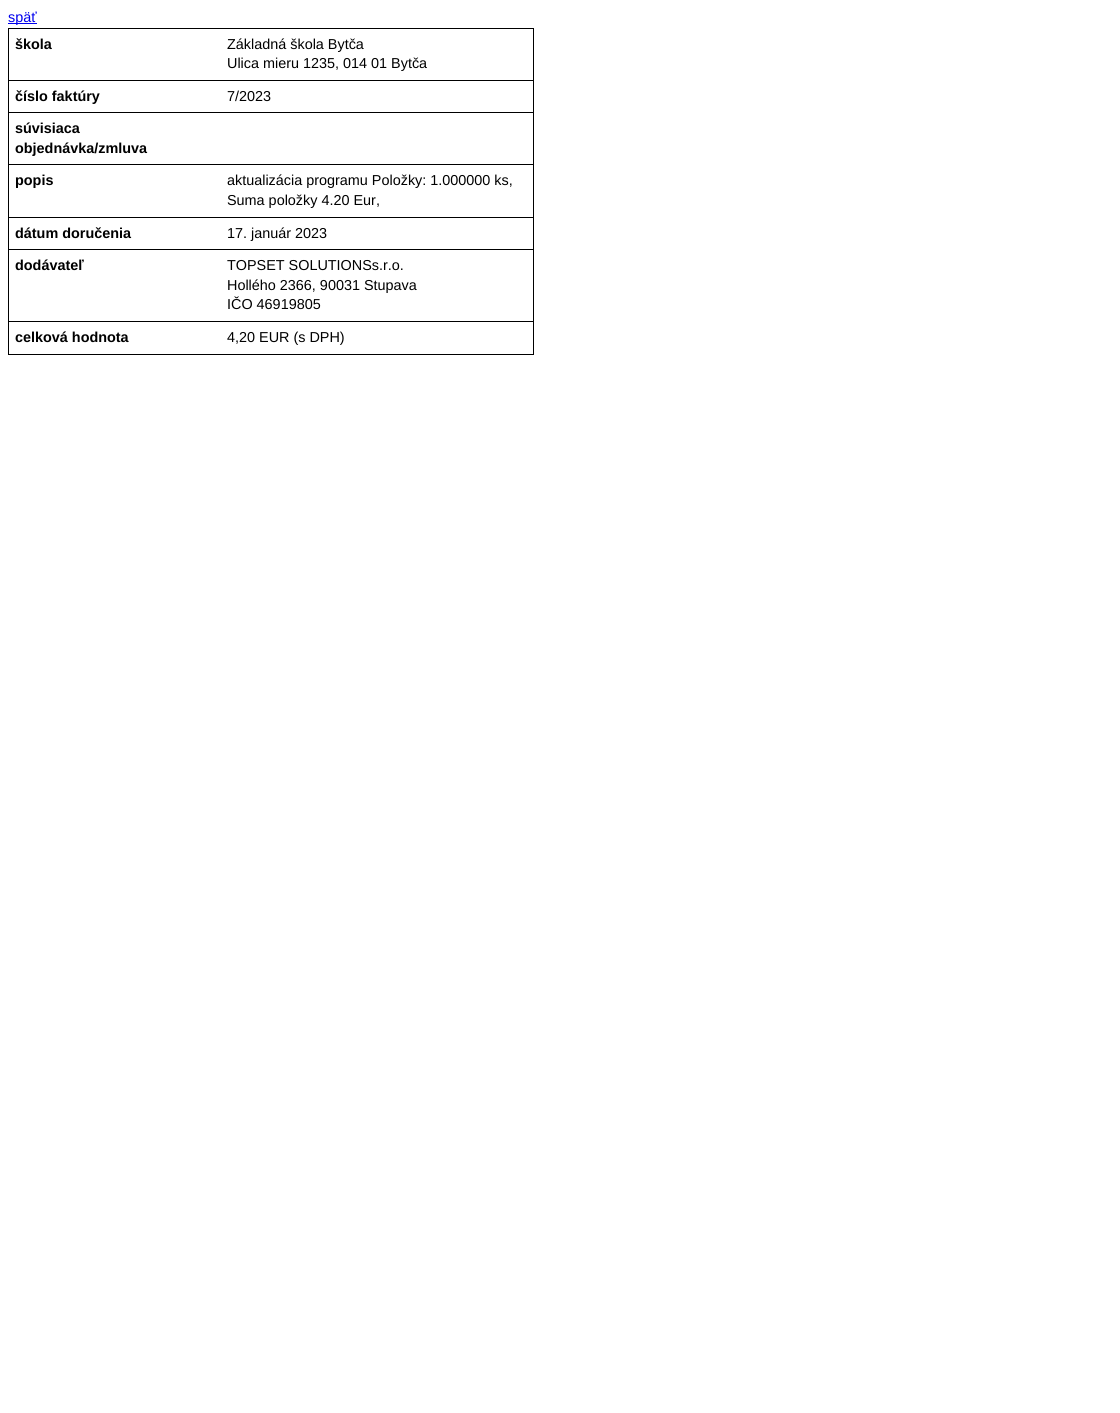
#include <cairo.h>
#include <math.h>
#include <stddef.h>


int main(void) {
    cairo_surface_t *surface = cairo_image_surface_create(CAIRO_FORMAT_RGB24, 1120, 1413);
    cairo_t *cr = cairo_create(surface);
    cairo_font_options_t *options = cairo_font_options_create();
    cairo_font_options_set_hint_metrics(options, CAIRO_HINT_METRICS_OFF);
    cairo_font_options_set_hint_style(options, CAIRO_HINT_STYLE_NONE);
    cairo_set_font_options(cr, options);
    cairo_set_miter_limit(cr, 4);
    cairo_set_source_rgb(cr, 1, 1, 1);
    cairo_paint(cr);
    cairo_set_source_rgb(cr, 0, 0, 0.933);
    cairo_rectangle(cr, 8, 23, 29, 1);
    cairo_fill(cr);
    cairo_select_font_face(cr, "Liberation Sans", CAIRO_FONT_SLANT_NORMAL, CAIRO_FONT_WEIGHT_NORMAL);
    cairo_set_font_size(cr, 14.4);
    cairo_move_to(cr, 8, 22);
    cairo_show_text(cr, "späť");
    cairo_set_source_rgb(cr, 0, 0, 0);
    cairo_rectangle(cr, 8, 28, 526, 1);
    cairo_fill(cr);
    cairo_rectangle(cr, 533, 28, 1, 327);
    cairo_fill(cr);
    cairo_rectangle(cr, 8, 28, 1, 327);
    cairo_fill(cr);
    cairo_rectangle(cr, 9, 80, 524, 1);
    cairo_fill(cr);
    cairo_select_font_face(cr, "Liberation Sans", CAIRO_FONT_SLANT_NORMAL, CAIRO_FONT_WEIGHT_BOLD);
    cairo_move_to(cr, 15, 49);
    cairo_show_text(cr, "škola");
    cairo_select_font_face(cr, "Liberation Sans", CAIRO_FONT_SLANT_NORMAL, CAIRO_FONT_WEIGHT_NORMAL);
    cairo_move_to(cr, 227, 49);
    cairo_show_text(cr, "Základná škola Bytča");
    cairo_move_to(cr, 227, 68);
    cairo_show_text(cr, "Ulica mieru 1235, 014 01 Bytča");
    cairo_rectangle(cr, 9, 112, 524, 1);
    cairo_fill(cr);
    cairo_select_font_face(cr, "Liberation Sans", CAIRO_FONT_SLANT_NORMAL, CAIRO_FONT_WEIGHT_BOLD);
    cairo_move_to(cr, 15, 101);
    cairo_show_text(cr, "číslo faktúry");
    cairo_select_font_face(cr, "Liberation Sans", CAIRO_FONT_SLANT_NORMAL, CAIRO_FONT_WEIGHT_NORMAL);
    cairo_move_to(cr, 227, 101);
    cairo_show_text(cr, "7/2023");
    cairo_rectangle(cr, 9, 164, 524, 1);
    cairo_fill(cr);
    cairo_select_font_face(cr, "Liberation Sans", CAIRO_FONT_SLANT_NORMAL, CAIRO_FONT_WEIGHT_BOLD);
    cairo_move_to(cr, 15, 133);
    cairo_show_text(cr, "súvisiaca");
    cairo_move_to(cr, 15, 153);
    cairo_show_text(cr, "objednávka/zmluva");
    cairo_rectangle(cr, 9, 217, 524, 1);
    cairo_fill(cr);
    cairo_move_to(cr, 15, 185);
    cairo_show_text(cr, "popis");
    cairo_select_font_face(cr, "Liberation Sans", CAIRO_FONT_SLANT_NORMAL, CAIRO_FONT_WEIGHT_NORMAL);
    cairo_move_to(cr, 227, 185);
    cairo_show_text(cr, "aktualizácia programu Položky: 1.000000 ks,");
    cairo_move_to(cr, 227, 205);
    cairo_show_text(cr, "Suma položky 4.20 Eur,");
    cairo_rectangle(cr, 9, 249, 524, 1);
    cairo_fill(cr);
    cairo_select_font_face(cr, "Liberation Sans", CAIRO_FONT_SLANT_NORMAL, CAIRO_FONT_WEIGHT_BOLD);
    cairo_move_to(cr, 15, 238);
    cairo_show_text(cr, "dátum doručenia");
    cairo_select_font_face(cr, "Liberation Sans", CAIRO_FONT_SLANT_NORMAL, CAIRO_FONT_WEIGHT_NORMAL);
    cairo_move_to(cr, 227, 238);
    cairo_show_text(cr, "17. január 2023");
    cairo_rectangle(cr, 9, 321, 524, 1);
    cairo_fill(cr);
    cairo_select_font_face(cr, "Liberation Sans", CAIRO_FONT_SLANT_NORMAL, CAIRO_FONT_WEIGHT_BOLD);
    cairo_move_to(cr, 15, 270);
    cairo_show_text(cr, "dodávateľ");
    cairo_select_font_face(cr, "Liberation Sans", CAIRO_FONT_SLANT_NORMAL, CAIRO_FONT_WEIGHT_NORMAL);
    cairo_move_to(cr, 227, 270);
    cairo_show_text(cr, "TOPSET SOLUTIONSs.r.o.");
    cairo_move_to(cr, 227, 290);
    cairo_show_text(cr, "Hollého 2366, 90031 Stupava");
    cairo_move_to(cr, 227, 309);
    cairo_show_text(cr, "IČO 46919805");
    cairo_rectangle(cr, 9, 354, 524, 1);
    cairo_fill(cr);
    cairo_select_font_face(cr, "Liberation Sans", CAIRO_FONT_SLANT_NORMAL, CAIRO_FONT_WEIGHT_BOLD);
    cairo_move_to(cr, 15, 342);
    cairo_show_text(cr, "celková hodnota");
    cairo_select_font_face(cr, "Liberation Sans", CAIRO_FONT_SLANT_NORMAL, CAIRO_FONT_WEIGHT_NORMAL);
    cairo_move_to(cr, 227, 342);
    cairo_show_text(cr, "4,20 EUR (s DPH)");
    cairo_surface_write_to_png(surface, "page.png");
    cairo_font_options_destroy(options);
    cairo_destroy(cr);
    cairo_surface_destroy(surface);
    return 0;
}
